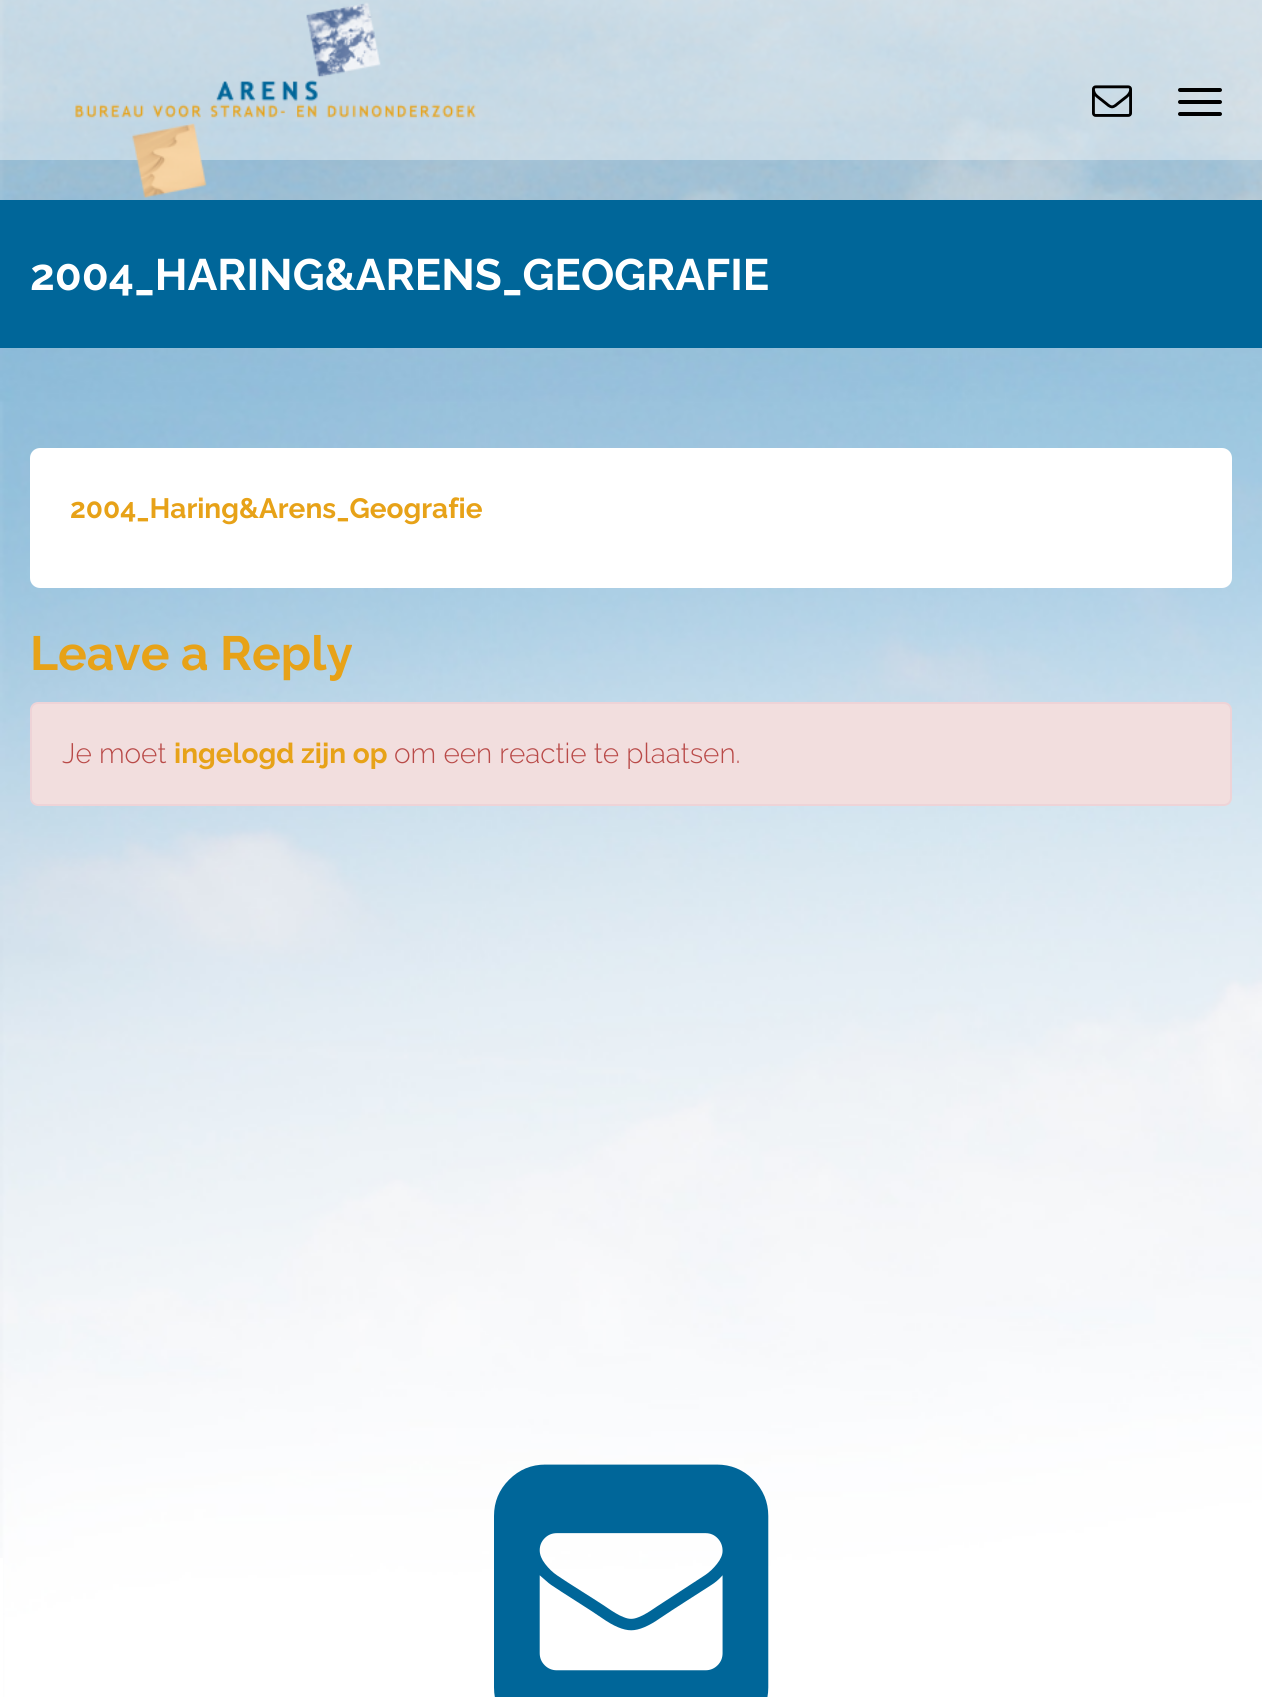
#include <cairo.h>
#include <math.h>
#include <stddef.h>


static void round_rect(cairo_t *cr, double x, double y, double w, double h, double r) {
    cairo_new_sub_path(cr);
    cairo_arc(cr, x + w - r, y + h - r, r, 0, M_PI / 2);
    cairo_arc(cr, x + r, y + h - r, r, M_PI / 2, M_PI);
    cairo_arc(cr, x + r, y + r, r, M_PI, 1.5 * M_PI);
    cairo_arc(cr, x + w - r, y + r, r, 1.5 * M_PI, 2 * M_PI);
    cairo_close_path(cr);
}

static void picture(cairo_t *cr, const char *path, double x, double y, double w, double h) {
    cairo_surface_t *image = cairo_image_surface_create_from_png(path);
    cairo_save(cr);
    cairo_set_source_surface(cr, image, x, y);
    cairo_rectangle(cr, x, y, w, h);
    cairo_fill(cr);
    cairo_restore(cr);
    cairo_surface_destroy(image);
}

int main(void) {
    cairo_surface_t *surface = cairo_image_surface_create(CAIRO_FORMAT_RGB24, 1262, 1697);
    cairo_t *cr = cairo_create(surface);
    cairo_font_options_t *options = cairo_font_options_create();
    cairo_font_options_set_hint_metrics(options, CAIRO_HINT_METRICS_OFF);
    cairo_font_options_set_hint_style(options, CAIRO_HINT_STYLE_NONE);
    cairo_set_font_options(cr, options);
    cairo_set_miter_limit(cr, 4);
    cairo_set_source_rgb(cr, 1, 1, 1);
    cairo_paint(cr);
    picture(cr, "img1.png", 0, 0, 1262, 1697);
    cairo_set_source_rgba(cr, 1, 1, 1, 0.4);
    cairo_rectangle(cr, 0, 0, 1262, 160);
    cairo_fill(cr);
    picture(cr, "img2.png", 75, 2, 401, 196);
    picture(cr, "img3.png", 1092, 85, 40, 32);
    cairo_set_source_rgb(cr, 0, 0, 0);
    round_rect(cr, 1178, 88, 44, 4, 2);
    cairo_fill(cr);
    round_rect(cr, 1178, 100, 44, 4, 2);
    cairo_fill(cr);
    round_rect(cr, 1178, 112, 44, 4, 2);
    cairo_fill(cr);
    cairo_set_source_rgb(cr, 0, 0.4, 0.6);
    cairo_rectangle(cr, 0, 200, 1262, 148);
    cairo_fill(cr);
    cairo_select_font_face(cr, "Raleway", CAIRO_FONT_SLANT_NORMAL, CAIRO_FONT_WEIGHT_BOLD);
    cairo_set_font_size(cr, 44);
    cairo_set_source_rgb(cr, 1, 1, 1);
    cairo_move_to(cr, 30, 290);
    cairo_show_text(cr, "2004_HARING&ARENS_GEOGRAFIE");
    round_rect(cr, 30, 448, 1202, 140, 10);
    cairo_fill(cr);
    cairo_set_font_size(cr, 28);
    cairo_set_source_rgb(cr, 0.906, 0.635, 0.094);
    cairo_move_to(cr, 70, 518);
    cairo_show_text(cr, "2004_Haring&Arens_Geografie");
    cairo_set_font_size(cr, 48);
    cairo_move_to(cr, 30, 670);
    cairo_show_text(cr, "Leave a Reply");
    cairo_set_source_rgb(cr, 0.949, 0.871, 0.871);
    round_rect(cr, 31, 703, 1200, 102, 7);
    cairo_fill_preserve(cr);
    cairo_set_source_rgb(cr, 0.933, 0.827, 0.843);
    cairo_stroke(cr);
    cairo_select_font_face(cr, "Raleway Light", CAIRO_FONT_SLANT_NORMAL, CAIRO_FONT_WEIGHT_NORMAL);
    cairo_set_font_size(cr, 28);
    cairo_set_source_rgb(cr, 0.725, 0.29, 0.282);
    cairo_move_to(cr, 62, 763);
    cairo_show_text(cr, "Je moet");
    cairo_select_font_face(cr, "Raleway", CAIRO_FONT_SLANT_NORMAL, CAIRO_FONT_WEIGHT_BOLD);
    cairo_set_source_rgb(cr, 0.906, 0.635, 0.094);
    cairo_move_to(cr, 174, 763);
    cairo_show_text(cr, "ingelogd zijn op");
    cairo_select_font_face(cr, "Raleway Light", CAIRO_FONT_SLANT_NORMAL, CAIRO_FONT_WEIGHT_NORMAL);
    cairo_set_source_rgb(cr, 0.725, 0.29, 0.282);
    cairo_move_to(cr, 394, 763);
    cairo_show_text(cr, "om een reactie te plaatsen.");
    cairo_set_source_rgb(cr, 1, 1, 1);
    cairo_rectangle(cr, 0, 1558, 3, 139);
    cairo_fill(cr);
    picture(cr, "img4.png", 494, 1464, 275, 233);
    cairo_surface_write_to_png(surface, "page.png");
    cairo_font_options_destroy(options);
    cairo_destroy(cr);
    cairo_surface_destroy(surface);
    return 0;
}
